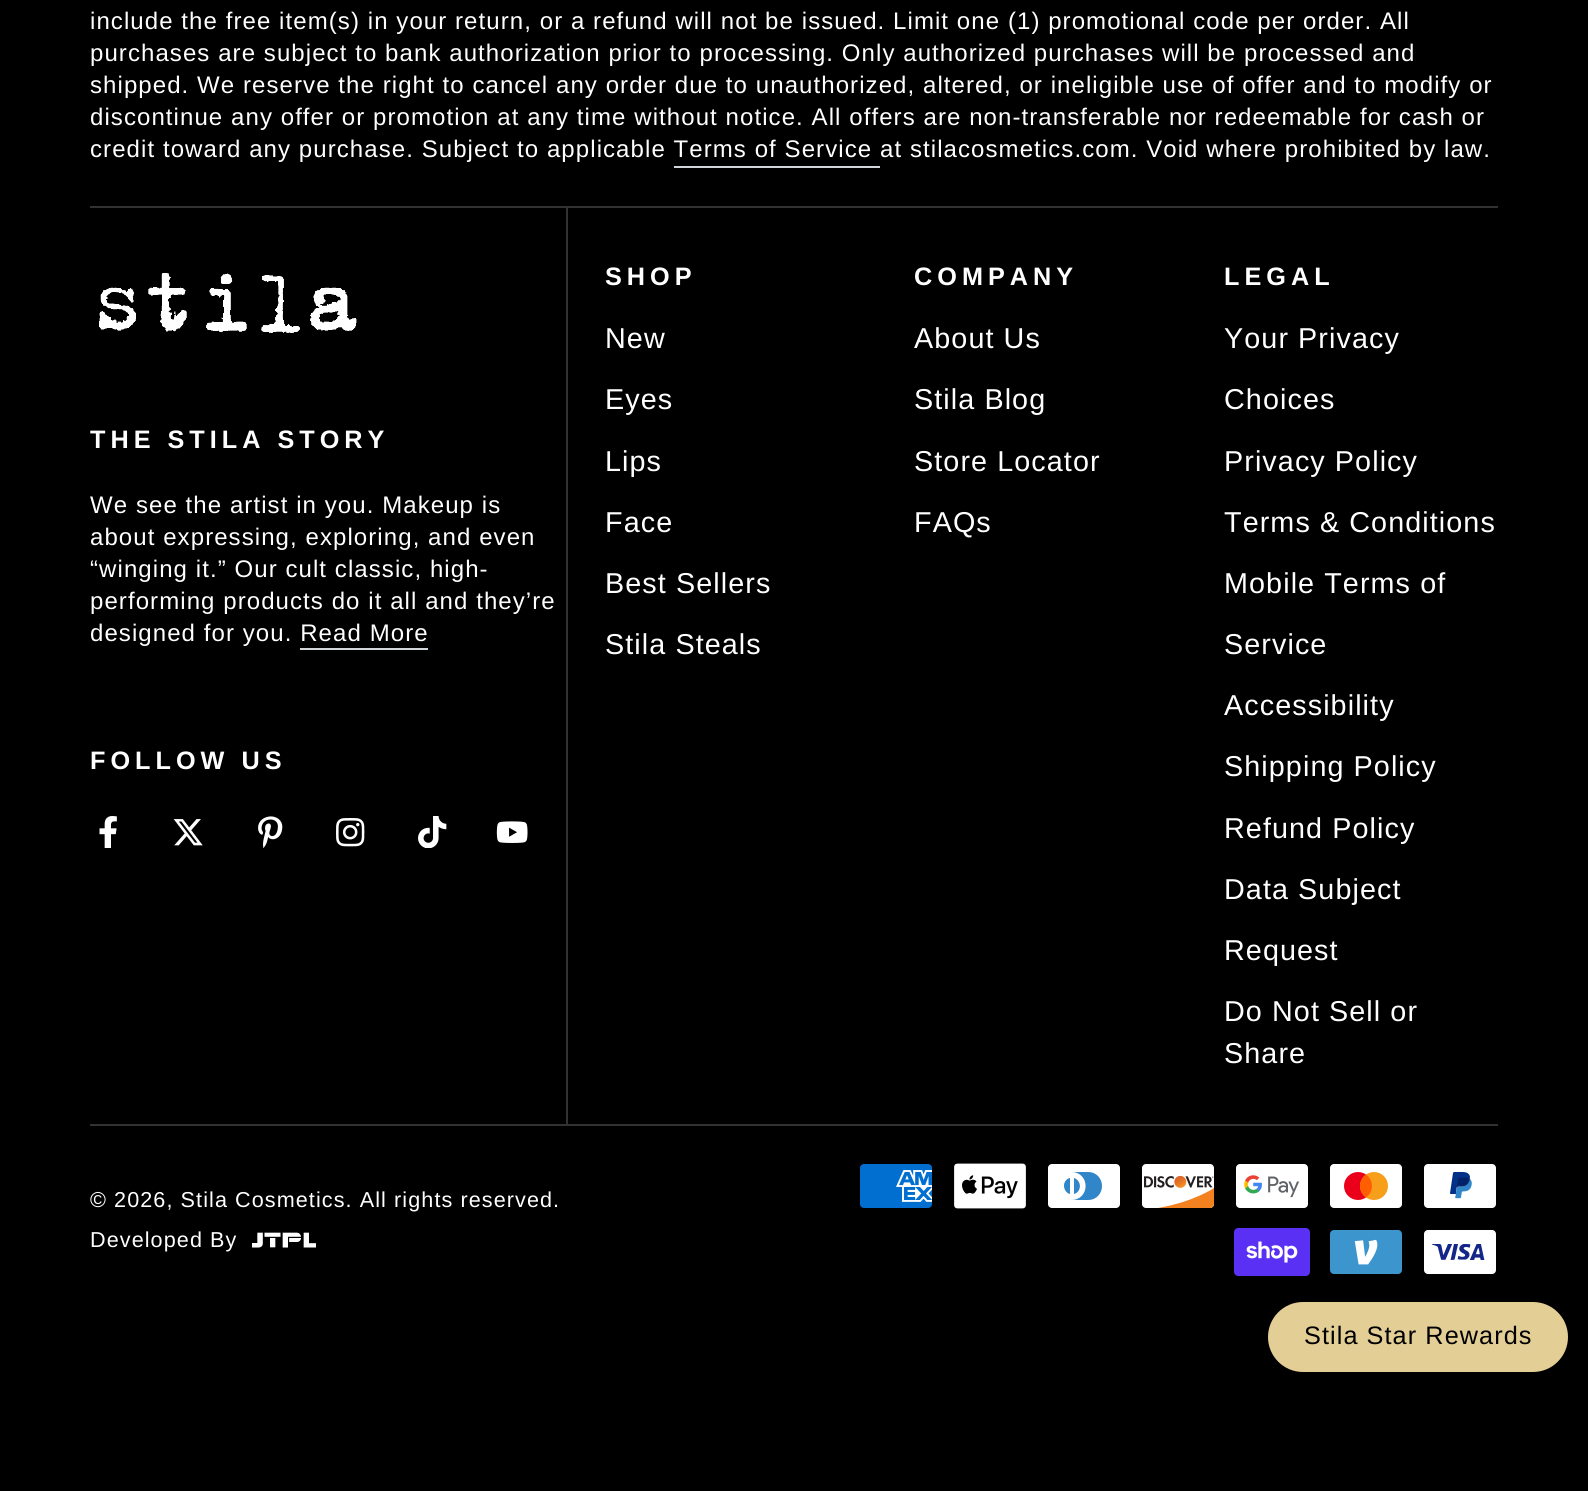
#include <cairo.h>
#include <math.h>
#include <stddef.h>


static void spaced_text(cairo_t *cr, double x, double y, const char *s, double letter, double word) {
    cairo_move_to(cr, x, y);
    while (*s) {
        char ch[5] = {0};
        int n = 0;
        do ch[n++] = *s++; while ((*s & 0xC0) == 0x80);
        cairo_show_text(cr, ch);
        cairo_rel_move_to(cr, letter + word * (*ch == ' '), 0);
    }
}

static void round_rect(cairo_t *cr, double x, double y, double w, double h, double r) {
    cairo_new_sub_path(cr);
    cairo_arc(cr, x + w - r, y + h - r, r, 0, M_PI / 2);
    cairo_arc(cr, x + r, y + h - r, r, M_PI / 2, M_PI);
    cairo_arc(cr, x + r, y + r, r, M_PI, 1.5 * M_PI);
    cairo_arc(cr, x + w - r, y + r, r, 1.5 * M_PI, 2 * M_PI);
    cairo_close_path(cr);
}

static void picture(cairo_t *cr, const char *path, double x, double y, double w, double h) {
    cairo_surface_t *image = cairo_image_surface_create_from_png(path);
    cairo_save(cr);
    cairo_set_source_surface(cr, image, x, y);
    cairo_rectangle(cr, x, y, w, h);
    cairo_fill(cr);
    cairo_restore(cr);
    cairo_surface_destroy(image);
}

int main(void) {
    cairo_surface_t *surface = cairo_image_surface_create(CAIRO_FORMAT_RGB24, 1588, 1491);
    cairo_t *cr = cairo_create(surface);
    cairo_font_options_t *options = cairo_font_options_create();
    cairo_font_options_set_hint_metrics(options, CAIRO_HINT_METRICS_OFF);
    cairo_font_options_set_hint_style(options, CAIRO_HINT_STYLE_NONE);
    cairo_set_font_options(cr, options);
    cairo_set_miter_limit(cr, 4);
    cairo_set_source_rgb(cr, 0, 0, 0);
    cairo_paint(cr);
    cairo_set_source_rgb(cr, 0.196, 0.196, 0.196);
    cairo_rectangle(cr, 90, 1124, 1408, 2);
    cairo_fill(cr);
    cairo_rectangle(cr, 90, 206, 1408, 2);
    cairo_fill(cr);
    cairo_select_font_face(cr, "Liberation Sans", CAIRO_FONT_SLANT_NORMAL, CAIRO_FONT_WEIGHT_NORMAL);
    cairo_set_font_size(cr, 24);
    cairo_set_source_rgb(cr, 1, 1, 1);
    spaced_text(cr, 90, 29, "include the free item(s) in your return, or a refund will not be issued. Limit one (1) promotional code per order. All", 1.08, 0);
    spaced_text(cr, 90, 61, "purchases are subject to bank authorization prior to processing. Only authorized purchases will be processed and", 1.08, 0);
    spaced_text(cr, 90, 93, "shipped. We reserve the right to cancel any order due to unauthorized, altered, or ineligible use of offer and to modify or", 1.08, 0);
    spaced_text(cr, 90, 125, "discontinue any offer or promotion at any time without notice. All offers are non-transferable nor redeemable for cash or", 1.08, 0);
    spaced_text(cr, 90, 157, "credit toward any purchase. Subject to applicable Terms of Service", 1.08, 0);
    spaced_text(cr, 880, 157, "at stilacosmetics.com. Void where prohibited by law.", 1.08, 0);
    cairo_set_source_rgb(cr, 0.824, 0.835, 0.851);
    cairo_rectangle(cr, 674, 166, 206, 2);
    cairo_fill(cr);
    cairo_set_source_rgb(cr, 0.196, 0.196, 0.196);
    cairo_rectangle(cr, 566, 208, 2, 916);
    cairo_fill(cr);
    picture(cr, "img1.png", 99, 273, 258, 60);
    cairo_select_font_face(cr, "Liberation Sans", CAIRO_FONT_SLANT_NORMAL, CAIRO_FONT_WEIGHT_BOLD);
    cairo_set_font_size(cr, 25.25);
    cairo_set_source_rgb(cr, 1, 1, 1);
    spaced_text(cr, 90, 448, "THE STILA STORY", 5, 0);
    cairo_select_font_face(cr, "Liberation Sans", CAIRO_FONT_SLANT_NORMAL, CAIRO_FONT_WEIGHT_NORMAL);
    cairo_set_font_size(cr, 24);
    spaced_text(cr, 90, 513, "We see the artist in you. Makeup is", 1.08, 0);
    spaced_text(cr, 90, 545, "about expressing, exploring, and even", 1.08, 0);
    spaced_text(cr, 90, 577, "“winging it.” Our cult classic, high-", 1.08, 0);
    spaced_text(cr, 90, 609, "performing products do it all and they’re", 1.08, 0);
    spaced_text(cr, 90, 641, "designed for you. Read More", 1.08, 0);
    cairo_set_source_rgb(cr, 0.824, 0.835, 0.851);
    cairo_rectangle(cr, 300, 648, 128, 2);
    cairo_fill(cr);
    cairo_select_font_face(cr, "Liberation Sans", CAIRO_FONT_SLANT_NORMAL, CAIRO_FONT_WEIGHT_BOLD);
    cairo_set_font_size(cr, 25.25);
    cairo_set_source_rgb(cr, 1, 1, 1);
    spaced_text(cr, 90, 769, "FOLLOW US", 5, 0);
    picture(cr, "img2.png", 99, 816, 18, 32);
    picture(cr, "img3.png", 173, 819, 30, 27);
    picture(cr, "img4.png", 258, 816, 25, 32);
    picture(cr, "img5.png", 336, 818, 29, 29);
    picture(cr, "img6.png", 418, 816, 29, 32);
    picture(cr, "img7.png", 496, 821, 32, 22);
    spaced_text(cr, 605, 285, "SHOP", 5, 0);
    cairo_select_font_face(cr, "Liberation Sans", CAIRO_FONT_SLANT_NORMAL, CAIRO_FONT_WEIGHT_NORMAL);
    cairo_set_font_size(cr, 28.75);
    spaced_text(cr, 605, 348, "New", 1.08, 0);
    spaced_text(cr, 605, 409, "Eyes", 1.08, 0);
    spaced_text(cr, 605, 471, "Lips", 1.08, 0);
    spaced_text(cr, 605, 532, "Face", 1.08, 0);
    spaced_text(cr, 605, 593, "Best Sellers", 1.08, 0);
    spaced_text(cr, 605, 654, "Stila Steals", 1.08, 0);
    cairo_select_font_face(cr, "Liberation Sans", CAIRO_FONT_SLANT_NORMAL, CAIRO_FONT_WEIGHT_BOLD);
    cairo_set_font_size(cr, 25.25);
    spaced_text(cr, 914, 285, "COMPANY", 5, 0);
    cairo_select_font_face(cr, "Liberation Sans", CAIRO_FONT_SLANT_NORMAL, CAIRO_FONT_WEIGHT_NORMAL);
    cairo_set_font_size(cr, 28.75);
    spaced_text(cr, 914, 348, "About Us", 1.08, 0);
    spaced_text(cr, 914, 409, "Stila Blog", 1.08, 0);
    spaced_text(cr, 914, 471, "Store Locator", 1.08, 0);
    spaced_text(cr, 914, 532, "FAQs", 1.08, 0);
    cairo_select_font_face(cr, "Liberation Sans", CAIRO_FONT_SLANT_NORMAL, CAIRO_FONT_WEIGHT_BOLD);
    cairo_set_font_size(cr, 25.25);
    spaced_text(cr, 1224, 285, "LEGAL", 5, 0);
    cairo_select_font_face(cr, "Liberation Sans", CAIRO_FONT_SLANT_NORMAL, CAIRO_FONT_WEIGHT_NORMAL);
    cairo_set_font_size(cr, 28.75);
    spaced_text(cr, 1224, 348, "Your Privacy", 1.08, 0);
    spaced_text(cr, 1224, 409, "Choices", 1.08, 0);
    spaced_text(cr, 1224, 471, "Privacy Policy", 1.08, 0);
    spaced_text(cr, 1224, 532, "Terms & Conditions", 1.08, 0);
    spaced_text(cr, 1224, 593, "Mobile Terms of", 1.08, 0);
    spaced_text(cr, 1224, 654, "Service", 1.08, 0);
    spaced_text(cr, 1224, 715, "Accessibility", 1.08, 0);
    spaced_text(cr, 1224, 776, "Shipping Policy", 1.08, 0);
    spaced_text(cr, 1224, 838, "Refund Policy", 1.08, 0);
    spaced_text(cr, 1224, 899, "Data Subject", 1.08, 0);
    spaced_text(cr, 1224, 960, "Request", 1.08, 0);
    spaced_text(cr, 1224, 1021, "Do Not Sell or", 1.08, 0);
    spaced_text(cr, 1224, 1063, "Share", 1.08, 0);
    cairo_set_font_size(cr, 21.6);
    spaced_text(cr, 90, 1207, "© 2026, Stila Cosmetics. All rights reserved.", 1.08, 0);
    spaced_text(cr, 90, 1247, "Developed By", 1.08, 0);
    picture(cr, "img8.png", 252, 1232, 64, 16);
    picture(cr, "img9.png", 860, 1164, 72, 44);
    picture(cr, "img10.png", 954, 1163, 72, 46);
    picture(cr, "img11.png", 1048, 1164, 72, 44);
    picture(cr, "img12.png", 1142, 1164, 73, 44);
    picture(cr, "img13.png", 1236, 1164, 72, 44);
    picture(cr, "img14.png", 1330, 1164, 72, 44);
    picture(cr, "img15.png", 1424, 1164, 72, 44);
    picture(cr, "img16.png", 1234, 1228, 76, 48);
    picture(cr, "img17.png", 1330, 1230, 72, 44);
    picture(cr, "img18.png", 1424, 1230, 72, 44);
    cairo_set_source_rgb(cr, 0.89, 0.808, 0.584);
    round_rect(cr, 1268, 1302, 300, 70, 35);
    cairo_fill(cr);
    cairo_set_font_size(cr, 25.25);
    cairo_set_source_rgb(cr, 0, 0, 0);
    spaced_text(cr, 1304, 1344, "Stila Star Rewards", 1.08, 0);
    cairo_surface_write_to_png(surface, "page.png");
    cairo_font_options_destroy(options);
    cairo_destroy(cr);
    cairo_surface_destroy(surface);
    return 0;
}
